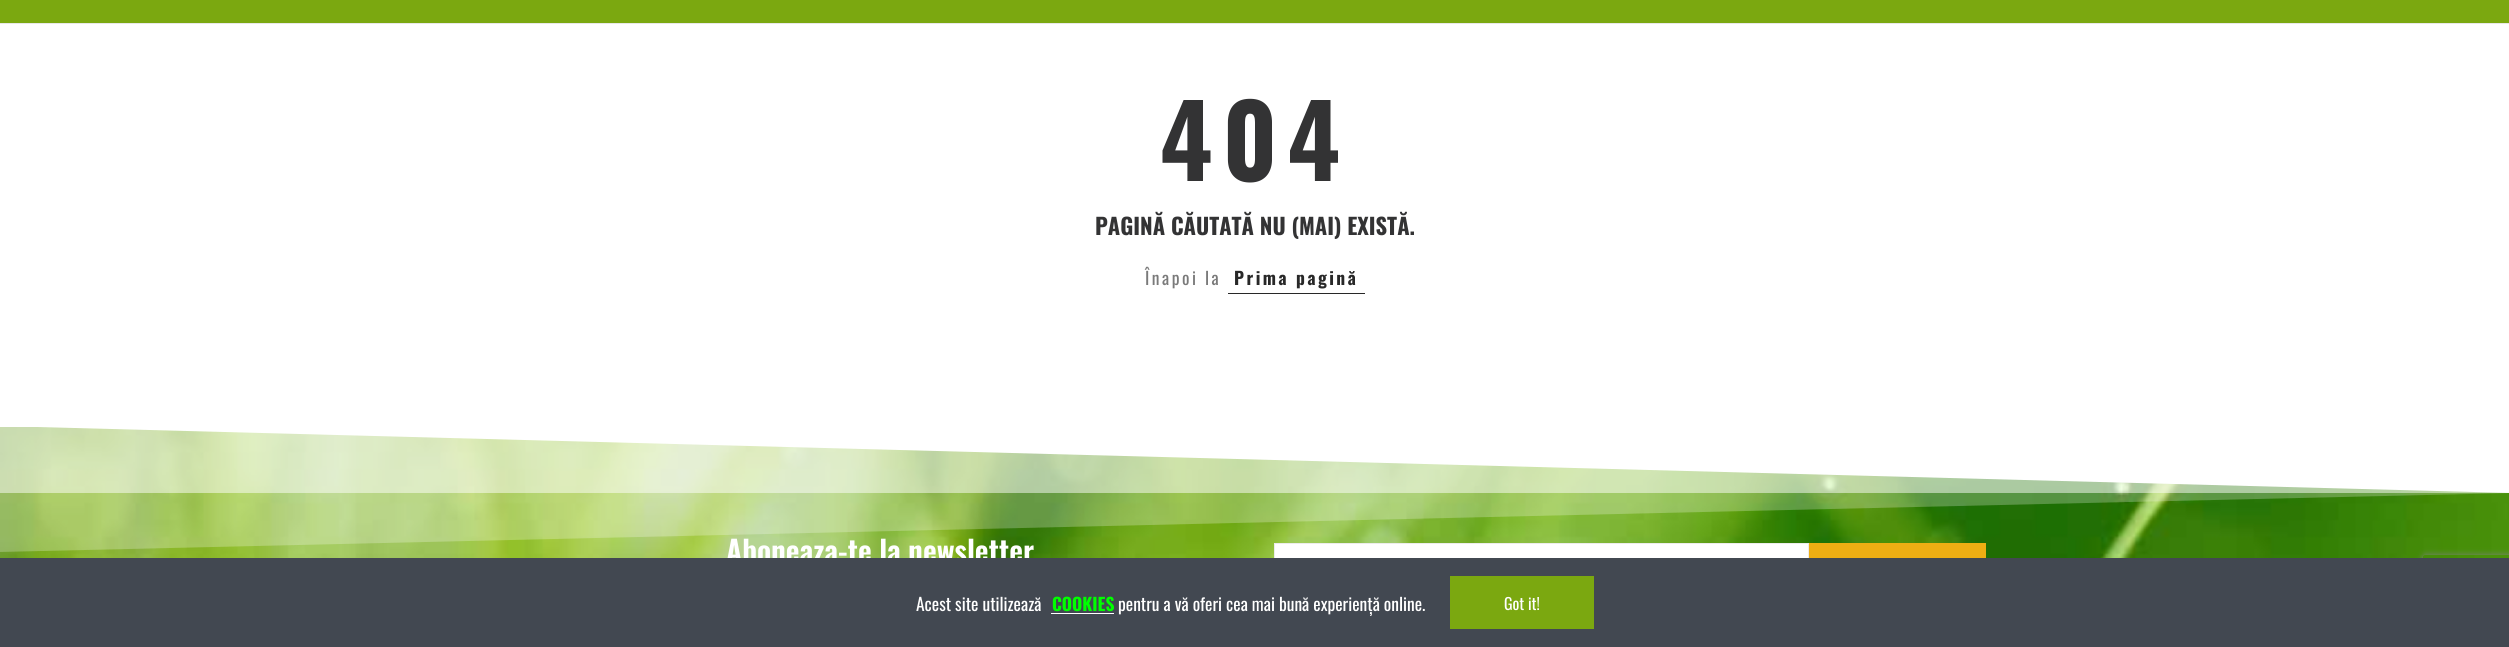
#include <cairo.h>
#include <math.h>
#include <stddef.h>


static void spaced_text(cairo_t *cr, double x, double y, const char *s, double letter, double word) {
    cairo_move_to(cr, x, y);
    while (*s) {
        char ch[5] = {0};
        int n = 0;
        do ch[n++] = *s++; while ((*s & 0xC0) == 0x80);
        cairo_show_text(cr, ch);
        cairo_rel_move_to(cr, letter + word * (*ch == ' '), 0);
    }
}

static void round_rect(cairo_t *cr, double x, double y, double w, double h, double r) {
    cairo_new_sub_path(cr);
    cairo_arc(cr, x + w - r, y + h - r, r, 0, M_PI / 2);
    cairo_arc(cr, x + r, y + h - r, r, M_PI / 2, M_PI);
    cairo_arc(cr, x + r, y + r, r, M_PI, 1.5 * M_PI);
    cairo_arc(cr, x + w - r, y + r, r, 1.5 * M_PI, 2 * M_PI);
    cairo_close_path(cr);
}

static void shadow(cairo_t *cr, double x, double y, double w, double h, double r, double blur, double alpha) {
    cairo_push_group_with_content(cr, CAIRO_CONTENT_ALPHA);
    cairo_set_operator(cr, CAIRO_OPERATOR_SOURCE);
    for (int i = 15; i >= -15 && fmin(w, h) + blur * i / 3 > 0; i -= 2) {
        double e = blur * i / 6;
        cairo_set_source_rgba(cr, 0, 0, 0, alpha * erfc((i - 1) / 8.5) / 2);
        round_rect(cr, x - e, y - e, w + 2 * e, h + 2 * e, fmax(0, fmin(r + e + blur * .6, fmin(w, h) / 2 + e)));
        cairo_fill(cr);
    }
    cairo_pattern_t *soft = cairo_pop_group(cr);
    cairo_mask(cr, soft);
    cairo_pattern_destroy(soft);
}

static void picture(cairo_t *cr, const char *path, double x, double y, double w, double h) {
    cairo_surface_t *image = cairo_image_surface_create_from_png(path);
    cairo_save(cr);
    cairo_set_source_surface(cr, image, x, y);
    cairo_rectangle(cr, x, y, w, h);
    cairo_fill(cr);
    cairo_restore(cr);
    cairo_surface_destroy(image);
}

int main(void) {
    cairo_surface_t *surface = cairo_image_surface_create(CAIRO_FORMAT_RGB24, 2509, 647);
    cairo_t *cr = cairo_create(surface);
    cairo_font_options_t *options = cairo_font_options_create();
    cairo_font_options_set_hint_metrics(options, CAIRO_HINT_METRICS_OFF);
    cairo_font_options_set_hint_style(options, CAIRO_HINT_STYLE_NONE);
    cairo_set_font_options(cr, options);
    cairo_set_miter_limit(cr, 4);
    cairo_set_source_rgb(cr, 1, 1, 1);
    cairo_paint(cr);
    cairo_set_source_rgb(cr, 0.482, 0.659, 0.063);
    cairo_rectangle(cr, 0, 0, 2509, 23);
    cairo_fill(cr);
    cairo_set_source_rgb(cr, 0.91, 0.91, 0.91);
    cairo_rectangle(cr, 0, 23, 2509, 1);
    cairo_fill(cr);
    cairo_select_font_face(cr, "Oswald", CAIRO_FONT_SLANT_NORMAL, CAIRO_FONT_WEIGHT_BOLD);
    cairo_set_font_size(cr, 100);
    cairo_set_source_rgb(cr, 0.2, 0.2, 0.204);
    spaced_text(cr, 1160, 181, "404", 10, 0);
    cairo_set_font_size(cr, 22.5);
    cairo_move_to(cr, 1095, 235);
    cairo_show_text(cr, "PAGINĂ CĂUTATĂ NU (MAI) EXISTĂ.");
    cairo_select_font_face(cr, "Oswald", CAIRO_FONT_SLANT_NORMAL, CAIRO_FONT_WEIGHT_NORMAL);
    cairo_set_font_size(cr, 17.5);
    cairo_set_source_rgb(cr, 0.478, 0.478, 0.478);
    spaced_text(cr, 1145, 285, "Înapoi la", 2.5, 0);
    cairo_select_font_face(cr, "Oswald", CAIRO_FONT_SLANT_NORMAL, CAIRO_FONT_WEIGHT_BOLD);
    cairo_set_source_rgb(cr, 0.157, 0.157, 0.157);
    spaced_text(cr, 1234, 285, "Prima pagină", 2.5, 0);
    cairo_rectangle(cr, 1228, 293, 137, 1);
    cairo_fill(cr);
    picture(cr, "img1.png", 0, 427, 2509, 131);
    cairo_set_source_rgb(cr, 1, 1, 1);
    cairo_new_path(cr);
    cairo_move_to(cr, -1, 426);
    cairo_line_to(cr, 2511, 426);
    cairo_line_to(cr, 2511, 493);
    cairo_close_path(cr);
    cairo_fill(cr);
    cairo_set_source_rgba(cr, 1, 1, 1, 0.5);
    cairo_rectangle(cr, 0, 427, 2509, 66);
    cairo_fill(cr);
    cairo_set_source_rgba(cr, 1, 1, 1, 0.25);
    cairo_new_path(cr);
    cairo_move_to(cr, 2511, 426);
    cairo_line_to(cr, -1, 426);
    cairo_line_to(cr, -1, 552);
    cairo_line_to(cr, 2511, 493);
    cairo_close_path(cr);
    cairo_fill(cr);
    cairo_select_font_face(cr, "Oswald SemiBold", CAIRO_FONT_SLANT_NORMAL, CAIRO_FONT_WEIGHT_NORMAL);
    cairo_set_font_size(cr, 30);
    cairo_set_source_rgb(cr, 1, 1, 1);
    cairo_move_to(cr, 726, 563);
    cairo_show_text(cr, "Aboneaza-te la newsletter");
    cairo_rectangle(cr, 1275, 544, 533, 14);
    cairo_fill(cr);
    cairo_rectangle(cr, 1274.5, 543.5, 534, 56);
    cairo_set_source_rgb(cr, 0.922, 0.922, 0.922);
    cairo_set_line_width(cr, 1);
    cairo_stroke(cr);
    cairo_set_source_rgb(cr, 0.933, 0.682, 0.078);
    cairo_rectangle(cr, 1809, 543, 177, 15);
    cairo_fill(cr);
    cairo_save(cr);
    cairo_set_fill_rule(cr, CAIRO_FILL_RULE_EVEN_ODD);
    cairo_new_path(cr);
    cairo_move_to(cr, 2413, 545);
    cairo_line_to(cr, 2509, 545);
    cairo_line_to(cr, 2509, 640);
    cairo_line_to(cr, 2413, 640);
    cairo_close_path(cr);
    cairo_move_to(cr, 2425.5, 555);
    cairo_line_to(cr, 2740.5, 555);
    cairo_curve_to(cr, 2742, 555, 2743, 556, 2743, 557.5);
    cairo_line_to(cr, 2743, 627.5);
    cairo_curve_to(cr, 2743, 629, 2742, 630, 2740.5, 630);
    cairo_line_to(cr, 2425.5, 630);
    cairo_curve_to(cr, 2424, 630, 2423, 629, 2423, 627.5);
    cairo_line_to(cr, 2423, 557.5);
    cairo_curve_to(cr, 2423, 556, 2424, 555, 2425.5, 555);
    cairo_close_path(cr);
    cairo_clip(cr);
    cairo_set_source_rgb(cr, 0.502, 0.502, 0.502);
    shadow(cr, 2423, 555, 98, 75, 2.5, 3, 1);
    cairo_restore(cr);
    cairo_set_source_rgb(cr, 0.259, 0.282, 0.318);
    cairo_rectangle(cr, 0, 558, 2509, 89);
    cairo_fill(cr);
    cairo_select_font_face(cr, "Oswald", CAIRO_FONT_SLANT_NORMAL, CAIRO_FONT_WEIGHT_NORMAL);
    cairo_set_font_size(cr, 17.5);
    cairo_set_source_rgb(cr, 1, 1, 1);
    cairo_move_to(cr, 916, 611);
    cairo_show_text(cr, "Acest site utilizează");
    cairo_select_font_face(cr, "Oswald", CAIRO_FONT_SLANT_NORMAL, CAIRO_FONT_WEIGHT_BOLD);
    cairo_set_source_rgb(cr, 0, 1, 0);
    cairo_move_to(cr, 1052, 611);
    cairo_show_text(cr, "COOKIES");
    cairo_set_source_rgb(cr, 1, 1, 1);
    cairo_rectangle(cr, 1051, 613, 63, 1);
    cairo_fill(cr);
    cairo_select_font_face(cr, "Oswald", CAIRO_FONT_SLANT_NORMAL, CAIRO_FONT_WEIGHT_NORMAL);
    cairo_move_to(cr, 1118, 611);
    cairo_show_text(cr, "pentru a vă oferi cea mai bună experiență online.");
    cairo_set_source_rgb(cr, 0.482, 0.659, 0.063);
    cairo_rectangle(cr, 1450, 576, 144, 53);
    cairo_fill(cr);
    cairo_set_font_size(cr, 16);
    cairo_set_source_rgb(cr, 1, 1, 1);
    cairo_move_to(cr, 1504, 610);
    cairo_show_text(cr, "Got it!");
    cairo_surface_write_to_png(surface, "page.png");
    cairo_font_options_destroy(options);
    cairo_destroy(cr);
    cairo_surface_destroy(surface);
    return 0;
}
